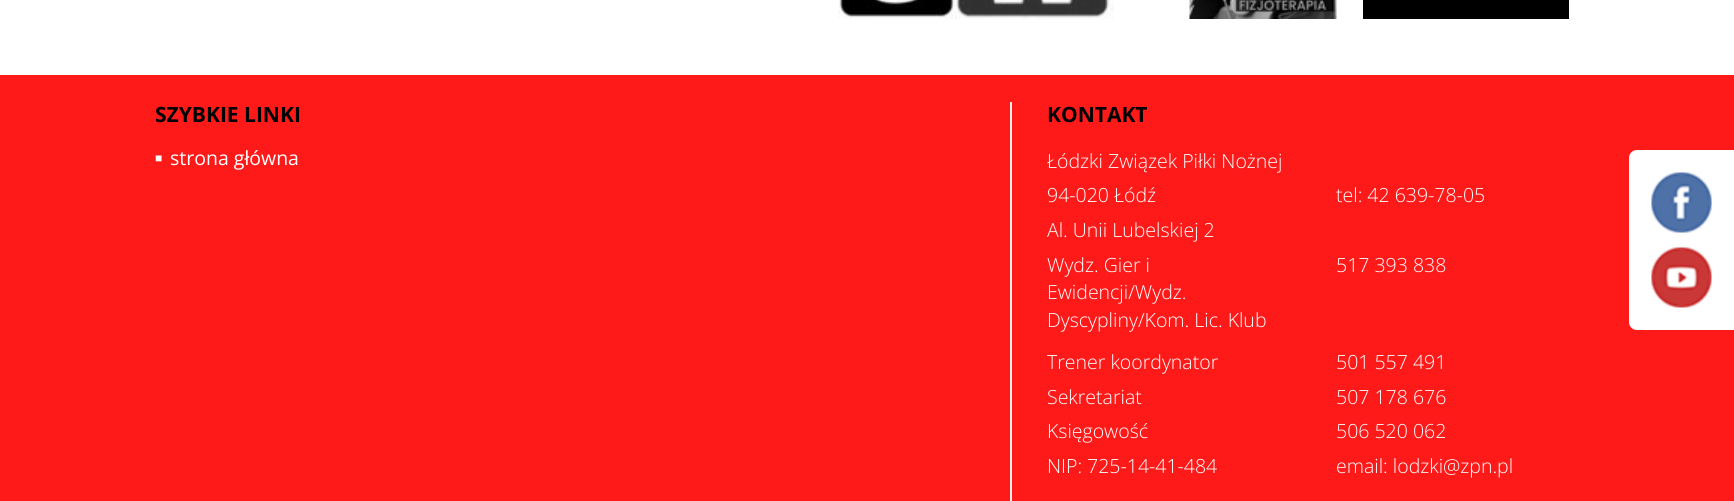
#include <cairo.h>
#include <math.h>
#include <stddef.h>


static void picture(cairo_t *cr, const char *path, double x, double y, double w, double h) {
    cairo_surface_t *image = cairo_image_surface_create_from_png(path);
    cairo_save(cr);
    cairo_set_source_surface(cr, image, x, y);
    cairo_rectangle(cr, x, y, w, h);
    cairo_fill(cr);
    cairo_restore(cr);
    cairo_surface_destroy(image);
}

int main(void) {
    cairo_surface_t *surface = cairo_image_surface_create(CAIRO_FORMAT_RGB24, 1734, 501);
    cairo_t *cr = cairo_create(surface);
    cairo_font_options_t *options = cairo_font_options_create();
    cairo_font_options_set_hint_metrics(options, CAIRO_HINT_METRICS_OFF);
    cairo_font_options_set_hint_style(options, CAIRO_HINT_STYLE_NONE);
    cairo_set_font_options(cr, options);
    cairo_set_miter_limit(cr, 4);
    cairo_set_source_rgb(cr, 1, 1, 1);
    cairo_paint(cr);
    picture(cr, "img1.png", 838, 0, 276, 19);
    picture(cr, "img2.png", 1189, 0, 148, 19);
    cairo_set_source_rgb(cr, 0, 0, 0);
    cairo_rectangle(cr, 1363, 0, 206, 19);
    cairo_fill(cr);
    cairo_set_source_rgb(cr, 1, 0.102, 0.102);
    cairo_rectangle(cr, 0, 75, 1734, 426);
    cairo_fill(cr);
    cairo_select_font_face(cr, "Open Sans", CAIRO_FONT_SLANT_NORMAL, CAIRO_FONT_WEIGHT_BOLD);
    cairo_set_font_size(cr, 21);
    cairo_set_source_rgb(cr, 0, 0, 0);
    cairo_move_to(cr, 155, 122);
    cairo_show_text(cr, "SZYBKIE LINKI");
    cairo_select_font_face(cr, "Liberation Sans", CAIRO_FONT_SLANT_NORMAL, CAIRO_FONT_WEIGHT_NORMAL);
    cairo_set_font_size(cr, 12);
    cairo_set_source_rgb(cr, 1, 1, 1);
    cairo_move_to(cr, 155, 162);
    cairo_show_text(cr, "■");
    cairo_select_font_face(cr, "Open Sans", CAIRO_FONT_SLANT_NORMAL, CAIRO_FONT_WEIGHT_NORMAL);
    cairo_set_font_size(cr, 19.5);
    cairo_move_to(cr, 170, 165);
    cairo_show_text(cr, "strona główna");
    cairo_set_source_rgb(cr, 0.918, 0.918, 0.914);
    cairo_rectangle(cr, 1010, 102, 2, 399);
    cairo_fill(cr);
    cairo_select_font_face(cr, "Open Sans", CAIRO_FONT_SLANT_NORMAL, CAIRO_FONT_WEIGHT_BOLD);
    cairo_set_font_size(cr, 21);
    cairo_set_source_rgb(cr, 0, 0, 0);
    cairo_move_to(cr, 1047, 122);
    cairo_show_text(cr, "KONTAKT");
    cairo_select_font_face(cr, "Open Sans Light", CAIRO_FONT_SLANT_NORMAL, CAIRO_FONT_WEIGHT_NORMAL);
    cairo_set_font_size(cr, 19.5);
    cairo_set_source_rgb(cr, 1, 1, 1);
    cairo_move_to(cr, 1047, 168);
    cairo_show_text(cr, "Łódzki Związek Piłki Nożnej");
    cairo_move_to(cr, 1047, 202);
    cairo_show_text(cr, "94-020 Łódź");
    cairo_move_to(cr, 1336, 202);
    cairo_show_text(cr, "tel: 42 639-78-05");
    cairo_move_to(cr, 1047, 237);
    cairo_show_text(cr, "Al. Unii Lubelskiej 2");
    cairo_move_to(cr, 1047, 272);
    cairo_show_text(cr, "Wydz. Gier i");
    cairo_move_to(cr, 1047, 299);
    cairo_show_text(cr, "Ewidencji/Wydz.");
    cairo_move_to(cr, 1047, 327);
    cairo_show_text(cr, "Dyscypliny/Kom. Lic. Klub");
    cairo_move_to(cr, 1336, 272);
    cairo_show_text(cr, "517 393 838");
    cairo_move_to(cr, 1047, 369);
    cairo_show_text(cr, "Trener koordynator");
    cairo_move_to(cr, 1336, 369);
    cairo_show_text(cr, "501 557 491");
    cairo_move_to(cr, 1047, 404);
    cairo_show_text(cr, "Sekretariat");
    cairo_move_to(cr, 1336, 404);
    cairo_show_text(cr, "507 178 676");
    cairo_move_to(cr, 1047, 438);
    cairo_show_text(cr, "Księgowość");
    cairo_move_to(cr, 1336, 438);
    cairo_show_text(cr, "506 520 062");
    cairo_move_to(cr, 1047, 473);
    cairo_show_text(cr, "NIP: 725-14-41-484");
    cairo_move_to(cr, 1336, 473);
    cairo_show_text(cr, "email: lodzki@zpn.pl");
    cairo_new_path(cr);
    cairo_move_to(cr, 1637, 150);
    cairo_line_to(cr, 1734, 150);
    cairo_line_to(cr, 1734, 330);
    cairo_line_to(cr, 1637, 330);
    cairo_curve_to(cr, 1632.5, 330, 1629, 326.5, 1629, 322);
    cairo_line_to(cr, 1629, 158);
    cairo_curve_to(cr, 1629, 153.5, 1632.5, 150, 1637, 150);
    cairo_close_path(cr);
    cairo_fill(cr);
    picture(cr, "img3.png", 1651, 172, 61, 61);
    picture(cr, "img4.png", 1651, 247, 61, 61);
    cairo_surface_write_to_png(surface, "page.png");
    cairo_font_options_destroy(options);
    cairo_destroy(cr);
    cairo_surface_destroy(surface);
    return 0;
}
